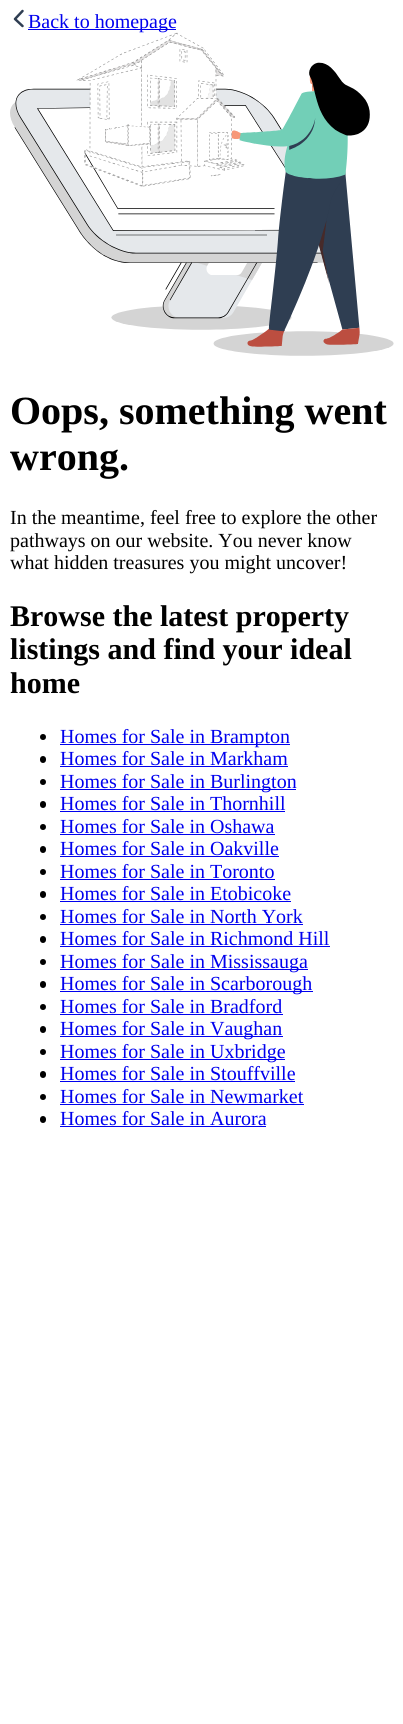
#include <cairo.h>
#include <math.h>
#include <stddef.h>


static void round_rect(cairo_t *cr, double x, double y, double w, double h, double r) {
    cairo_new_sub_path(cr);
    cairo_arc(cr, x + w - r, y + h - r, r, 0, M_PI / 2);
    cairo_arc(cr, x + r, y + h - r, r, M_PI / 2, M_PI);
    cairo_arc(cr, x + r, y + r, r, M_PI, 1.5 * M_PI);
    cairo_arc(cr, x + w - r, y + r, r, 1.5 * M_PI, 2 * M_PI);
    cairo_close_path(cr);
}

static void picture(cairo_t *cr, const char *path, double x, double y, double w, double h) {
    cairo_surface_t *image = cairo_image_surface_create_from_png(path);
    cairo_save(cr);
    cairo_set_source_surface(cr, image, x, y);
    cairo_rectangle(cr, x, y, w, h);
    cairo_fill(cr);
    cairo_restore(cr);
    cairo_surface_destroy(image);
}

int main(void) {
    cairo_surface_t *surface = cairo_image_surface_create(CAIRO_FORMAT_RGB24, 403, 1724);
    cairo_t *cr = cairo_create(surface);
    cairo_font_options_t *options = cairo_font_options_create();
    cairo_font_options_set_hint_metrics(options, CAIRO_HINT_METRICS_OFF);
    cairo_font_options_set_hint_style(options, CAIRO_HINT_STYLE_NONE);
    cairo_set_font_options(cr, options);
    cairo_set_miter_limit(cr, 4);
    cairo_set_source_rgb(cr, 1, 1, 1);
    cairo_paint(cr);
    cairo_new_path(cr);
    cairo_move_to(cr, 22.5, 11);
    cairo_line_to(cr, 15, 19);
    cairo_line_to(cr, 22.5, 26);
    cairo_set_source_rgb(cr, 0.184, 0.243, 0.322);
    cairo_set_line_width(cr, 2.5);
    cairo_set_line_cap(cr, CAIRO_LINE_CAP_ROUND);
    cairo_set_line_join(cr, CAIRO_LINE_JOIN_ROUND);
    cairo_stroke(cr);
    cairo_set_source_rgb(cr, 0, 0, 0.933);
    cairo_rectangle(cr, 28, 29, 148, 1);
    cairo_fill(cr);
    cairo_select_font_face(cr, "Liberation Serif", CAIRO_FONT_SLANT_NORMAL, CAIRO_FONT_WEIGHT_NORMAL);
    cairo_set_font_size(cr, 20);
    cairo_move_to(cr, 28, 28);
    cairo_show_text(cr, "Back to homepage");
    picture(cr, "img1.png", 10, 32, 384, 324);
    cairo_select_font_face(cr, "Liberation Serif", CAIRO_FONT_SLANT_NORMAL, CAIRO_FONT_WEIGHT_BOLD);
    cairo_set_font_size(cr, 40);
    cairo_set_source_rgb(cr, 0, 0, 0);
    cairo_move_to(cr, 10, 424);
    cairo_show_text(cr, "Oops, something went");
    cairo_move_to(cr, 10, 470);
    cairo_show_text(cr, "wrong.");
    cairo_select_font_face(cr, "Liberation Serif", CAIRO_FONT_SLANT_NORMAL, CAIRO_FONT_WEIGHT_NORMAL);
    cairo_set_font_size(cr, 20);
    cairo_move_to(cr, 10, 524);
    cairo_show_text(cr, "In the meantime, feel free to explore the other");
    cairo_move_to(cr, 10, 547);
    cairo_show_text(cr, "pathways on our website. You never know");
    cairo_move_to(cr, 10, 569);
    cairo_show_text(cr, "what hidden treasures you might uncover!");
    cairo_select_font_face(cr, "Liberation Serif", CAIRO_FONT_SLANT_NORMAL, CAIRO_FONT_WEIGHT_BOLD);
    cairo_set_font_size(cr, 30);
    cairo_move_to(cr, 10, 626);
    cairo_show_text(cr, "Browse the latest property");
    cairo_move_to(cr, 10, 659);
    cairo_show_text(cr, "listings and find your ideal");
    cairo_move_to(cr, 10, 693);
    cairo_show_text(cr, "home");
    cairo_new_path(cr);
    cairo_arc(cr, 43, 737, 3, 0, 2 * M_PI);
    cairo_fill(cr);
    cairo_set_source_rgb(cr, 0, 0, 0.933);
    cairo_rectangle(cr, 60, 744, 230, 1);
    cairo_fill(cr);
    cairo_select_font_face(cr, "Liberation Serif", CAIRO_FONT_SLANT_NORMAL, CAIRO_FONT_WEIGHT_NORMAL);
    cairo_set_font_size(cr, 20);
    cairo_move_to(cr, 60, 743);
    cairo_show_text(cr, "Homes for Sale in Brampton");
    cairo_set_source_rgb(cr, 0, 0, 0);
    round_rect(cr, 40, 756, 6, 7, 3);
    cairo_fill(cr);
    cairo_set_source_rgb(cr, 0, 0, 0.933);
    cairo_move_to(cr, 60, 765);
    cairo_show_text(cr, "Homes for Sale in Markham");
    cairo_rectangle(cr, 60, 766, 228, 1);
    cairo_fill(cr);
    cairo_set_source_rgb(cr, 0, 0, 0);
    cairo_arc(cr, 43, 782, 3, 0, 2 * M_PI);
    cairo_fill(cr);
    cairo_set_source_rgb(cr, 0, 0, 0.933);
    cairo_rectangle(cr, 60, 789, 236, 1);
    cairo_fill(cr);
    cairo_move_to(cr, 60, 788);
    cairo_show_text(cr, "Homes for Sale in Burlington");
    cairo_set_source_rgb(cr, 0, 0, 0);
    round_rect(cr, 40, 801, 6, 7, 3);
    cairo_fill(cr);
    cairo_set_source_rgb(cr, 0, 0, 0.933);
    cairo_move_to(cr, 60, 810);
    cairo_show_text(cr, "Homes for Sale in Thornhill");
    cairo_rectangle(cr, 60, 811, 225, 1);
    cairo_fill(cr);
    cairo_set_source_rgb(cr, 0, 0, 0);
    cairo_arc(cr, 43, 827, 3, 0, 2 * M_PI);
    cairo_fill(cr);
    cairo_set_source_rgb(cr, 0, 0, 0.933);
    cairo_move_to(cr, 60, 833);
    cairo_show_text(cr, "Homes for Sale in Oshawa");
    cairo_rectangle(cr, 60, 834, 215, 1);
    cairo_fill(cr);
    cairo_set_source_rgb(cr, 0, 0, 0);
    round_rect(cr, 40, 846, 6, 7, 3);
    cairo_fill(cr);
    cairo_set_source_rgb(cr, 0, 0, 0.933);
    cairo_move_to(cr, 60, 855);
    cairo_show_text(cr, "Homes for Sale in Oakville");
    cairo_rectangle(cr, 60, 856, 219, 1);
    cairo_fill(cr);
    cairo_set_source_rgb(cr, 0, 0, 0);
    cairo_arc(cr, 43, 872, 3, 0, 2 * M_PI);
    cairo_fill(cr);
    cairo_set_source_rgb(cr, 0, 0, 0.933);
    cairo_move_to(cr, 60, 878);
    cairo_show_text(cr, "Homes for Sale in Toronto");
    cairo_rectangle(cr, 60, 879, 215, 1);
    cairo_fill(cr);
    cairo_set_source_rgb(cr, 0, 0, 0);
    round_rect(cr, 40, 891, 6, 7, 3);
    cairo_fill(cr);
    cairo_set_source_rgb(cr, 0, 0, 0.933);
    cairo_move_to(cr, 60, 900);
    cairo_show_text(cr, "Homes for Sale in Etobicoke");
    cairo_rectangle(cr, 60, 901, 231, 1);
    cairo_fill(cr);
    cairo_set_source_rgb(cr, 0, 0, 0);
    cairo_arc(cr, 43, 917, 3, 0, 2 * M_PI);
    cairo_fill(cr);
    cairo_set_source_rgb(cr, 0, 0, 0.933);
    cairo_move_to(cr, 60, 923);
    cairo_show_text(cr, "Homes for Sale in North York");
    cairo_rectangle(cr, 60, 924, 243, 1);
    cairo_fill(cr);
    cairo_set_source_rgb(cr, 0, 0, 0);
    round_rect(cr, 40, 936, 6, 7, 3);
    cairo_fill(cr);
    cairo_set_source_rgb(cr, 0, 0, 0.933);
    cairo_move_to(cr, 60, 945);
    cairo_show_text(cr, "Homes for Sale in Richmond Hill");
    cairo_rectangle(cr, 60, 946, 270, 1);
    cairo_fill(cr);
    cairo_set_source_rgb(cr, 0, 0, 0);
    cairo_arc(cr, 43, 962, 3, 0, 2 * M_PI);
    cairo_fill(cr);
    cairo_set_source_rgb(cr, 0, 0, 0.933);
    cairo_rectangle(cr, 60, 969, 248, 1);
    cairo_fill(cr);
    cairo_move_to(cr, 60, 968);
    cairo_show_text(cr, "Homes for Sale in Mississauga");
    cairo_set_source_rgb(cr, 0, 0, 0);
    round_rect(cr, 40, 981, 6, 7, 3);
    cairo_fill(cr);
    cairo_set_source_rgb(cr, 0, 0, 0.933);
    cairo_rectangle(cr, 60, 991, 253, 1);
    cairo_fill(cr);
    cairo_move_to(cr, 60, 990);
    cairo_show_text(cr, "Homes for Sale in Scarborough");
    cairo_set_source_rgb(cr, 0, 0, 0);
    cairo_new_path(cr);
    cairo_arc(cr, 43, 1007, 3, 0, 2 * M_PI);
    cairo_fill(cr);
    cairo_set_source_rgb(cr, 0, 0, 0.933);
    cairo_move_to(cr, 60, 1013);
    cairo_show_text(cr, "Homes for Sale in Bradford");
    cairo_rectangle(cr, 60, 1014, 223, 1);
    cairo_fill(cr);
    cairo_set_source_rgb(cr, 0, 0, 0);
    round_rect(cr, 40, 1026, 6, 7, 3);
    cairo_fill(cr);
    cairo_set_source_rgb(cr, 0, 0, 0.933);
    cairo_rectangle(cr, 60, 1036, 223, 1);
    cairo_fill(cr);
    cairo_move_to(cr, 60, 1035);
    cairo_show_text(cr, "Homes for Sale in Vaughan");
    cairo_set_source_rgb(cr, 0, 0, 0);
    cairo_new_path(cr);
    cairo_arc(cr, 43, 1052, 3, 0, 2 * M_PI);
    cairo_fill(cr);
    cairo_set_source_rgb(cr, 0, 0, 0.933);
    cairo_rectangle(cr, 60, 1059, 225, 1);
    cairo_fill(cr);
    cairo_move_to(cr, 60, 1058);
    cairo_show_text(cr, "Homes for Sale in Uxbridge");
    cairo_set_source_rgb(cr, 0, 0, 0);
    round_rect(cr, 40, 1071, 6, 7, 3);
    cairo_fill(cr);
    cairo_set_source_rgb(cr, 0, 0, 0.933);
    cairo_move_to(cr, 60, 1080);
    cairo_show_text(cr, "Homes for Sale in Stouffville");
    cairo_rectangle(cr, 60, 1081, 235, 1);
    cairo_fill(cr);
    cairo_set_source_rgb(cr, 0, 0, 0);
    cairo_arc(cr, 43, 1097, 3, 0, 2 * M_PI);
    cairo_fill(cr);
    cairo_set_source_rgb(cr, 0, 0, 0.933);
    cairo_move_to(cr, 60, 1103);
    cairo_show_text(cr, "Homes for Sale in Newmarket");
    cairo_rectangle(cr, 60, 1104, 244, 1);
    cairo_fill(cr);
    cairo_set_source_rgb(cr, 0, 0, 0);
    round_rect(cr, 40, 1116, 6, 7, 3);
    cairo_fill(cr);
    cairo_set_source_rgb(cr, 0, 0, 0.933);
    cairo_move_to(cr, 60, 1125);
    cairo_show_text(cr, "Homes for Sale in Aurora");
    cairo_rectangle(cr, 60, 1126, 206, 1);
    cairo_fill(cr);
    cairo_surface_write_to_png(surface, "page.png");
    cairo_font_options_destroy(options);
    cairo_destroy(cr);
    cairo_surface_destroy(surface);
    return 0;
}
